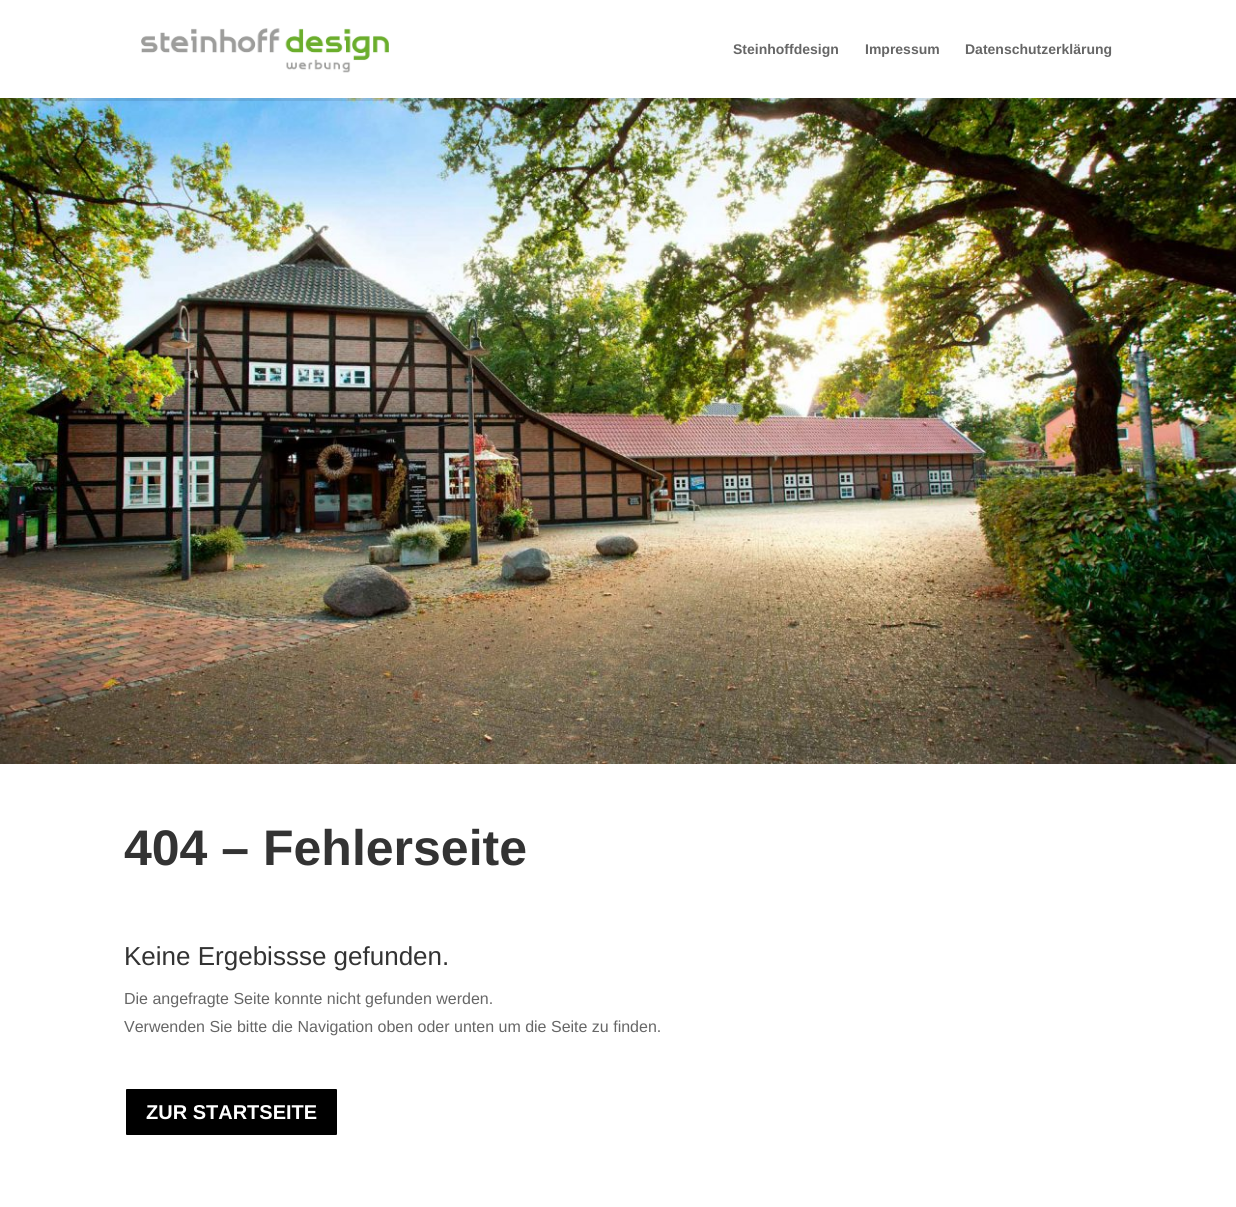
#include <cairo.h>
#include <math.h>
#include <stddef.h>


static void round_rect(cairo_t *cr, double x, double y, double w, double h, double r) {
    cairo_new_sub_path(cr);
    cairo_arc(cr, x + w - r, y + h - r, r, 0, M_PI / 2);
    cairo_arc(cr, x + r, y + h - r, r, M_PI / 2, M_PI);
    cairo_arc(cr, x + r, y + r, r, M_PI, 1.5 * M_PI);
    cairo_arc(cr, x + w - r, y + r, r, 1.5 * M_PI, 2 * M_PI);
    cairo_close_path(cr);
}

static void picture(cairo_t *cr, const char *path, double x, double y, double w, double h) {
    cairo_surface_t *image = cairo_image_surface_create_from_png(path);
    cairo_save(cr);
    cairo_set_source_surface(cr, image, x, y);
    cairo_rectangle(cr, x, y, w, h);
    cairo_fill(cr);
    cairo_restore(cr);
    cairo_surface_destroy(image);
}

int main(void) {
    cairo_surface_t *surface = cairo_image_surface_create(CAIRO_FORMAT_RGB24, 1236, 1207);
    cairo_t *cr = cairo_create(surface);
    cairo_font_options_t *options = cairo_font_options_create();
    cairo_font_options_set_hint_metrics(options, CAIRO_HINT_METRICS_OFF);
    cairo_font_options_set_hint_style(options, CAIRO_HINT_STYLE_NONE);
    cairo_set_font_options(cr, options);
    cairo_set_miter_limit(cr, 4);
    cairo_set_source_rgb(cr, 1, 1, 1);
    cairo_paint(cr);
    picture(cr, "img2.png", 0, 98, 1236, 666);
    cairo_set_source_rgba(cr, 0, 0, 0, 0.1);
    cairo_rectangle(cr, 0, 98, 1236, 3);
    cairo_fill(cr);
    picture(cr, "img1.png", 141, 28, 248, 45);
    cairo_select_font_face(cr, "Liberation Sans", CAIRO_FONT_SLANT_NORMAL, CAIRO_FONT_WEIGHT_BOLD);
    cairo_set_font_size(cr, 14);
    cairo_set_source_rgb(cr, 0.4, 0.4, 0.4);
    cairo_move_to(cr, 733, 54);
    cairo_show_text(cr, "Steinhoffdesign");
    cairo_move_to(cr, 865, 54);
    cairo_show_text(cr, "Impressum");
    cairo_move_to(cr, 965, 54);
    cairo_show_text(cr, "Datenschutzerklärung");
    cairo_set_font_size(cr, 50);
    cairo_set_source_rgb(cr, 0.2, 0.2, 0.2);
    cairo_move_to(cr, 124, 865);
    cairo_show_text(cr, "404 – Fehlerseite");
    cairo_select_font_face(cr, "Liberation Sans", CAIRO_FONT_SLANT_NORMAL, CAIRO_FONT_WEIGHT_NORMAL);
    cairo_set_font_size(cr, 26);
    cairo_move_to(cr, 124, 965);
    cairo_show_text(cr, "Keine Ergebissse gefunden.");
    cairo_set_font_size(cr, 16);
    cairo_set_source_rgb(cr, 0.4, 0.4, 0.4);
    cairo_move_to(cr, 124, 1004);
    cairo_show_text(cr, "Die angefragte Seite konnte nicht gefunden werden.");
    cairo_move_to(cr, 124, 1032);
    cairo_show_text(cr, "Verwenden Sie bitte die Navigation oben oder unten um die Seite zu finden.");
    cairo_set_source_rgb(cr, 0, 0, 0);
    round_rect(cr, 125, 1088, 213, 48, 2);
    cairo_fill_preserve(cr);
    cairo_set_source_rgb(cr, 1, 1, 1);
    cairo_stroke(cr);
    cairo_select_font_face(cr, "Liberation Sans", CAIRO_FONT_SLANT_NORMAL, CAIRO_FONT_WEIGHT_BOLD);
    cairo_set_font_size(cr, 20);
    cairo_move_to(cr, 146, 1119);
    cairo_show_text(cr, "ZUR STARTSEITE");
    cairo_surface_write_to_png(surface, "page.png");
    cairo_font_options_destroy(options);
    cairo_destroy(cr);
    cairo_surface_destroy(surface);
    return 0;
}
